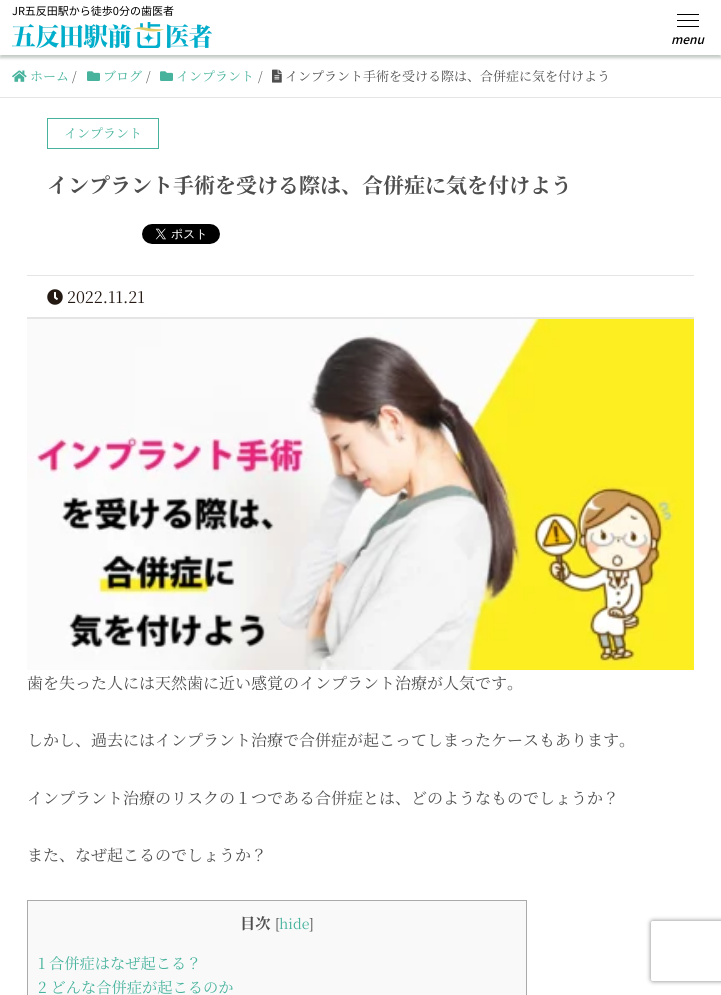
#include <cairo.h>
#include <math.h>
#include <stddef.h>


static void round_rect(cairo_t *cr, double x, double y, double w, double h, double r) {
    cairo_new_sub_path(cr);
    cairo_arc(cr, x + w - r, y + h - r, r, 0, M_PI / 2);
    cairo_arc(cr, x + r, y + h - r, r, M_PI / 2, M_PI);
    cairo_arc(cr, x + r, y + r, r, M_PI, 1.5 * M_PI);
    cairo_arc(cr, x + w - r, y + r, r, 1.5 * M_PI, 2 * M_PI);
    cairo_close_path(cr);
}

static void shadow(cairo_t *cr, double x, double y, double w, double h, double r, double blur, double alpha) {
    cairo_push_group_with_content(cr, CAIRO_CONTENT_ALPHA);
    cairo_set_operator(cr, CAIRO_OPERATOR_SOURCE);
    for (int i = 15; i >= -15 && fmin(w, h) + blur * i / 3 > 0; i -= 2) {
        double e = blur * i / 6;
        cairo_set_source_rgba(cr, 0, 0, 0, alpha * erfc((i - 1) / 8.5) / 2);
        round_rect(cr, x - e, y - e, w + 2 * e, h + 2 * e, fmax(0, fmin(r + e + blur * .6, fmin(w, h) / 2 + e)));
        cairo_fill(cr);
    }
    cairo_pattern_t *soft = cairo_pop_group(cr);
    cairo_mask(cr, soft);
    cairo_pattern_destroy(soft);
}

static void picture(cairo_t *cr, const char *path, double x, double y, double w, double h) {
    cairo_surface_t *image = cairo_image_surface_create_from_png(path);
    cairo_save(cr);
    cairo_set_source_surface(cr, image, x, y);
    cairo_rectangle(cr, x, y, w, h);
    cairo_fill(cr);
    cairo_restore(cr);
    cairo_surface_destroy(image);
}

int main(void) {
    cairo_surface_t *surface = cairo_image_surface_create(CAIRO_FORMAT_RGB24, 721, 995);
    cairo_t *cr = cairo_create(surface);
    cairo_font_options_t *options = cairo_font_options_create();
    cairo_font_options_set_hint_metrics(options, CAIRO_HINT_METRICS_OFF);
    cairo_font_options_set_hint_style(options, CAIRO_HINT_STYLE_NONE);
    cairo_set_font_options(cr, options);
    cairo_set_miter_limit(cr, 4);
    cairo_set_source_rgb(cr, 1, 1, 1);
    cairo_paint(cr);
    cairo_set_source_rgb(cr, 0.216, 0.314, 0.239);
    shadow(cr, 0, 3, 721, 55, 0, 1.5, 0.3);
    cairo_set_source_rgb(cr, 1, 1, 1);
    cairo_rectangle(cr, 0, 0, 721, 55);
    cairo_fill(cr);
    cairo_select_font_face(cr, "Noto Sans JP", CAIRO_FONT_SLANT_NORMAL, CAIRO_FONT_WEIGHT_NORMAL);
    cairo_set_font_size(cr, 11);
    cairo_set_source_rgb(cr, 0, 0, 0);
    cairo_move_to(cr, 12, 15);
    cairo_show_text(cr, "JR五反田駅から徒歩0分の歯医者");
    picture(cr, "img1.png", 12, 22, 200, 26);
    cairo_rectangle(cr, 677, 14, 22, 1);
    cairo_fill(cr);
    cairo_rectangle(cr, 677, 20, 22, 1);
    cairo_fill(cr);
    cairo_rectangle(cr, 677, 26, 22, 1);
    cairo_fill(cr);
    cairo_select_font_face(cr, "Noto Sans JP Medium", CAIRO_FONT_SLANT_ITALIC, CAIRO_FONT_WEIGHT_NORMAL);
    cairo_set_font_size(cr, 12);
    cairo_move_to(cr, 671, 44);
    cairo_show_text(cr, "menu");
    cairo_set_source_rgb(cr, 0.898, 0.898, 0.898);
    cairo_rectangle(cr, 0, 97, 721, 1);
    cairo_fill(cr);
    picture(cr, "img2.png", 12, 70, 15, 12);
    cairo_select_font_face(cr, "Noto Serif JP", CAIRO_FONT_SLANT_NORMAL, CAIRO_FONT_WEIGHT_NORMAL);
    cairo_set_font_size(cr, 13);
    cairo_set_source_rgb(cr, 0.278, 0.702, 0.616);
    cairo_move_to(cr, 30, 81);
    cairo_show_text(cr, "ホーム");
    cairo_set_source_rgb(cr, 0.31, 0.306, 0.306);
    cairo_move_to(cr, 72, 81);
    cairo_show_text(cr, "/");
    picture(cr, "img3.png", 87, 71, 13, 10);
    cairo_set_source_rgb(cr, 0.278, 0.702, 0.616);
    cairo_move_to(cr, 103, 81);
    cairo_show_text(cr, "ブログ");
    cairo_set_source_rgb(cr, 0.31, 0.306, 0.306);
    cairo_move_to(cr, 146, 81);
    cairo_show_text(cr, "/");
    picture(cr, "img3.png", 160, 71, 13, 10);
    cairo_set_source_rgb(cr, 0.278, 0.702, 0.616);
    cairo_move_to(cr, 176, 81);
    cairo_show_text(cr, "インプラント");
    cairo_set_source_rgb(cr, 0.31, 0.306, 0.306);
    cairo_move_to(cr, 258, 81);
    cairo_show_text(cr, "/");
    picture(cr, "img4.png", 272, 69, 10, 14);
    cairo_move_to(cr, 285, 81);
    cairo_show_text(cr, "インプラント手術を受ける際は、合併症に気を付けよう");
    cairo_set_source_rgb(cr, 0.898, 0.898, 0.898);
    cairo_rectangle(cr, 27, 275, 667, 1);
    cairo_fill(cr);
    cairo_rectangle(cr, 47.5, 118.5, 111, 30);
    cairo_set_source_rgb(cr, 0.278, 0.702, 0.616);
    cairo_set_line_width(cr, 1);
    cairo_stroke(cr);
    cairo_move_to(cr, 64, 138);
    cairo_show_text(cr, "インプラント");
    cairo_select_font_face(cr, "Noto Serif JP", CAIRO_FONT_SLANT_NORMAL, CAIRO_FONT_WEIGHT_BOLD);
    cairo_set_font_size(cr, 21);
    cairo_set_source_rgb(cr, 0.31, 0.306, 0.306);
    cairo_move_to(cr, 47, 193);
    cairo_show_text(cr, "インプラント手術を受ける際は、合併症に気を付けよう");
    picture(cr, "img5.png", 142, 224, 78, 20);
    cairo_set_source_rgb(cr, 0.898, 0.898, 0.898);
    cairo_rectangle(cr, 27, 317, 667, 2);
    cairo_fill(cr);
    picture(cr, "img6.png", 47, 289, 16, 16);
    cairo_select_font_face(cr, "Noto Serif JP", CAIRO_FONT_SLANT_NORMAL, CAIRO_FONT_WEIGHT_NORMAL);
    cairo_set_font_size(cr, 16);
    cairo_set_source_rgb(cr, 0.141, 0.098, 0.075);
    cairo_move_to(cr, 67, 303);
    cairo_show_text(cr, "2022.11.21");
    picture(cr, "img7.png", 27, 319, 667, 351);
    cairo_set_source_rgb(cr, 0.31, 0.306, 0.306);
    cairo_move_to(cr, 27, 689);
    cairo_show_text(cr, "歯を失った人には天然歯に近い感覚のインプラント治療が人気です。");
    cairo_move_to(cr, 27, 746);
    cairo_show_text(cr, "しかし、過去にはインプラント治療で合併症が起こってしまったケースもあります。");
    cairo_move_to(cr, 27, 804);
    cairo_show_text(cr, "インプラント治療のリスクの１つである合併症とは、どのようなものでしょうか？");
    cairo_move_to(cr, 27, 861);
    cairo_show_text(cr, "また、なぜ起こるのでしょうか？");
    cairo_set_source_rgb(cr, 0.976, 0.976, 0.976);
    cairo_rectangle(cr, 27.5, 900.5, 499, 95);
    cairo_fill_preserve(cr);
    cairo_set_source_rgb(cr, 0.667, 0.667, 0.667);
    cairo_stroke(cr);
    cairo_select_font_face(cr, "Noto Serif JP", CAIRO_FONT_SLANT_NORMAL, CAIRO_FONT_WEIGHT_BOLD);
    cairo_set_font_size(cr, 15.25);
    cairo_set_source_rgb(cr, 0.31, 0.306, 0.306);
    cairo_move_to(cr, 240, 929);
    cairo_show_text(cr, "目次");
    cairo_select_font_face(cr, "Noto Serif JP", CAIRO_FONT_SLANT_NORMAL, CAIRO_FONT_WEIGHT_NORMAL);
    cairo_set_font_size(cr, 14);
    cairo_move_to(cr, 275, 929);
    cairo_show_text(cr, "[");
    cairo_set_source_rgb(cr, 0.278, 0.702, 0.616);
    cairo_move_to(cr, 279, 929);
    cairo_show_text(cr, "hide");
    cairo_set_source_rgb(cr, 0.31, 0.306, 0.306);
    cairo_move_to(cr, 309, 929);
    cairo_show_text(cr, "]");
    cairo_set_font_size(cr, 15.25);
    cairo_set_source_rgb(cr, 0.278, 0.702, 0.616);
    cairo_move_to(cr, 38, 969);
    cairo_show_text(cr, "1 合併症はなぜ起こる？");
    cairo_move_to(cr, 38, 993);
    cairo_show_text(cr, "2 どんな合併症が起こるのか");
    cairo_save(cr);
    cairo_set_fill_rule(cr, CAIRO_FILL_RULE_EVEN_ODD);
    cairo_new_path(cr);
    cairo_move_to(cr, 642, 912);
    cairo_line_to(cr, 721, 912);
    cairo_line_to(cr, 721, 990);
    cairo_line_to(cr, 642, 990);
    cairo_close_path(cr);
    cairo_move_to(cr, 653, 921);
    cairo_line_to(cr, 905, 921);
    cairo_curve_to(cr, 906, 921, 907, 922, 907, 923);
    cairo_line_to(cr, 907, 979);
    cairo_curve_to(cr, 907, 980, 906, 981, 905, 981);
    cairo_line_to(cr, 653, 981);
    cairo_curve_to(cr, 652, 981, 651, 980, 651, 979);
    cairo_line_to(cr, 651, 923);
    cairo_curve_to(cr, 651, 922, 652, 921, 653, 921);
    cairo_close_path(cr);
    cairo_clip(cr);
    cairo_set_source_rgb(cr, 0.502, 0.502, 0.502);
    shadow(cr, 651, 921, 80, 60, 2, 2.5, 1);
    cairo_restore(cr);
    cairo_surface_write_to_png(surface, "page.png");
    cairo_font_options_destroy(options);
    cairo_destroy(cr);
    cairo_surface_destroy(surface);
    return 0;
}
